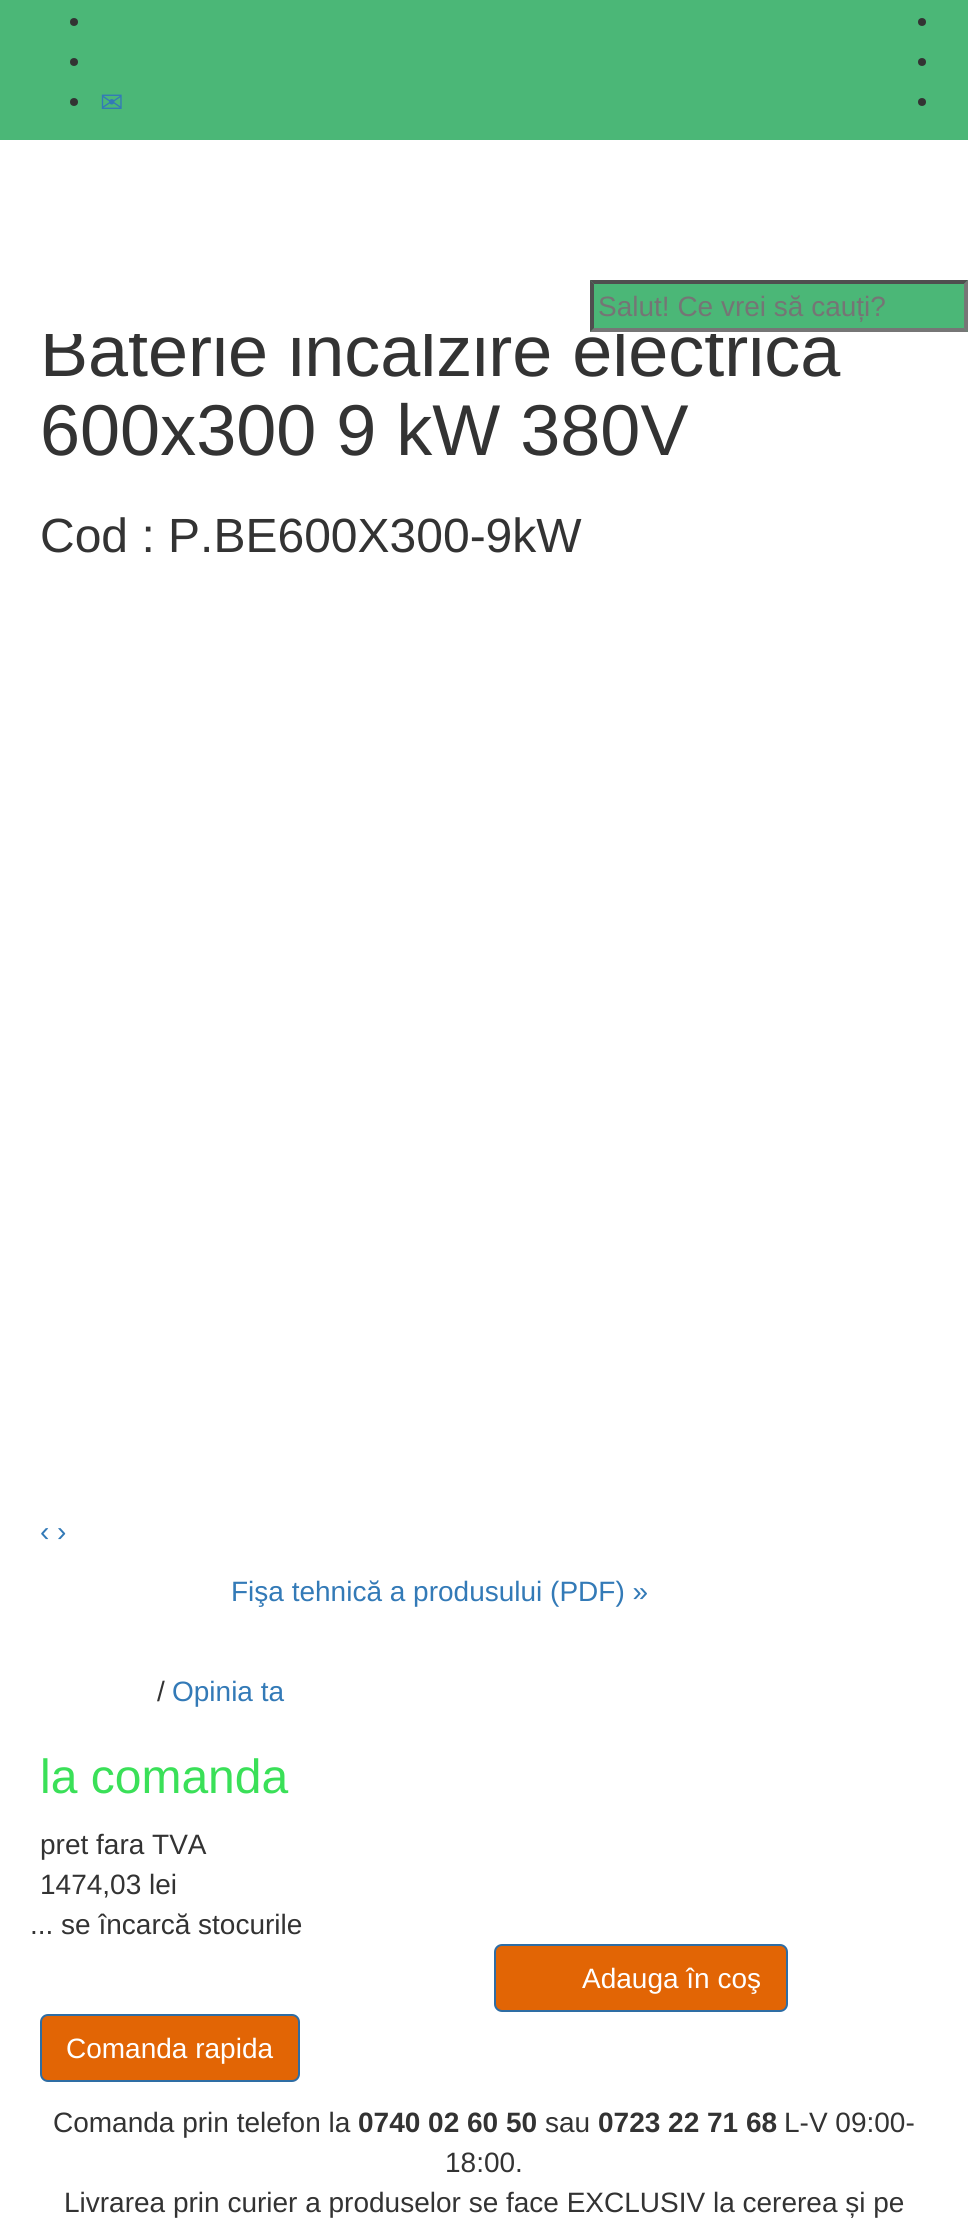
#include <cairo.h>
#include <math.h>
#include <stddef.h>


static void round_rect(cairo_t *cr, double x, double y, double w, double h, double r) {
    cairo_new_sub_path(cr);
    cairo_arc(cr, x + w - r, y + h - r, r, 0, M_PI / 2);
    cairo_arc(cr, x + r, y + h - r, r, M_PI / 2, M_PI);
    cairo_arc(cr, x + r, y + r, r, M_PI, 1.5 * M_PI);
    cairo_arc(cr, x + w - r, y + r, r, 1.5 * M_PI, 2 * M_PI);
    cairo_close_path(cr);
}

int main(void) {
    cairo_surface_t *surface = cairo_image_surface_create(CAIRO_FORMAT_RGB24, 968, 2222);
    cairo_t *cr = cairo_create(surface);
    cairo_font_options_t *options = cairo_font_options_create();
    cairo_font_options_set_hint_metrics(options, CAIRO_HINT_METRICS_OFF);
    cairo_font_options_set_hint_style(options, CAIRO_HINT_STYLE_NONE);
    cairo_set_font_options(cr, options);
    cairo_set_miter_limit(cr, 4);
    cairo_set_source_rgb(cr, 1, 1, 1);
    cairo_paint(cr);
    cairo_select_font_face(cr, "Liberation Sans", CAIRO_FONT_SLANT_NORMAL, CAIRO_FONT_WEIGHT_NORMAL);
    cairo_set_font_size(cr, 72);
    cairo_set_source_rgb(cr, 0.2, 0.2, 0.2);
    cairo_move_to(cr, 40, 376);
    cairo_show_text(cr, "Baterie incalzire electrica");
    cairo_set_source_rgb(cr, 1, 1, 1);
    cairo_rectangle(cr, 45, 323, 715, 11);
    cairo_fill(cr);
    cairo_set_source_rgb(cr, 0.294, 0.718, 0.467);
    cairo_rectangle(cr, 0, 0, 968, 140);
    cairo_fill(cr);
    cairo_set_source_rgb(cr, 0.2, 0.2, 0.2);
    cairo_arc(cr, 74, 22, 4, 0, 2 * M_PI);
    cairo_fill(cr);
    cairo_arc(cr, 74, 62, 4, 0, 2 * M_PI);
    cairo_fill(cr);
    cairo_arc(cr, 74, 102, 4, 0, 2 * M_PI);
    cairo_fill(cr);
    cairo_select_font_face(cr, "DejaVu Sans", CAIRO_FONT_SLANT_NORMAL, CAIRO_FONT_WEIGHT_NORMAL);
    cairo_set_font_size(cr, 28);
    cairo_set_source_rgb(cr, 0.2, 0.478, 0.718);
    cairo_move_to(cr, 100, 112);
    cairo_show_text(cr, "✉");
    cairo_set_source_rgb(cr, 0.2, 0.2, 0.2);
    cairo_new_path(cr);
    cairo_arc(cr, 922, 22, 4, 0, 2 * M_PI);
    cairo_fill(cr);
    cairo_arc(cr, 922, 62, 4, 0, 2 * M_PI);
    cairo_fill(cr);
    cairo_arc(cr, 922, 102, 4, 0, 2 * M_PI);
    cairo_fill(cr);
    cairo_set_source_rgb(cr, 0.294, 0.718, 0.467);
    cairo_rectangle(cr, 590, 280, 378, 52);
    cairo_fill(cr);
    cairo_set_source_rgb(cr, 0.31, 0.31, 0.31);
    cairo_new_path(cr);
    cairo_move_to(cr, 590, 280);
    cairo_line_to(cr, 968, 280);
    cairo_line_to(cr, 964, 284);
    cairo_line_to(cr, 594, 284);
    cairo_close_path(cr);
    cairo_fill(cr);
    cairo_set_source_rgb(cr, 0.463, 0.463, 0.463);
    cairo_new_path(cr);
    cairo_move_to(cr, 968, 280);
    cairo_line_to(cr, 968, 332);
    cairo_line_to(cr, 964, 328);
    cairo_line_to(cr, 964, 284);
    cairo_close_path(cr);
    cairo_fill(cr);
    cairo_new_path(cr);
    cairo_move_to(cr, 968, 332);
    cairo_line_to(cr, 590, 332);
    cairo_line_to(cr, 594, 328);
    cairo_line_to(cr, 964, 328);
    cairo_close_path(cr);
    cairo_fill(cr);
    cairo_set_source_rgb(cr, 0.31, 0.31, 0.31);
    cairo_new_path(cr);
    cairo_move_to(cr, 590, 332);
    cairo_line_to(cr, 590, 280);
    cairo_line_to(cr, 594, 284);
    cairo_line_to(cr, 594, 328);
    cairo_close_path(cr);
    cairo_fill(cr);
    cairo_select_font_face(cr, "Liberation Sans", CAIRO_FONT_SLANT_NORMAL, CAIRO_FONT_WEIGHT_NORMAL);
    cairo_set_source_rgb(cr, 0.459, 0.459, 0.459);
    cairo_move_to(cr, 598, 316);
    cairo_show_text(cr, "Salut! Ce vrei să cauți?");
    cairo_set_font_size(cr, 72);
    cairo_set_source_rgb(cr, 0.2, 0.2, 0.2);
    cairo_move_to(cr, 40, 455);
    cairo_show_text(cr, "600x300 9 kW 380V");
    cairo_set_font_size(cr, 48);
    cairo_move_to(cr, 40, 552);
    cairo_show_text(cr, "Cod : P.BE600X300-9kW");
    cairo_set_font_size(cr, 28);
    cairo_set_source_rgb(cr, 0.2, 0.478, 0.718);
    cairo_move_to(cr, 40, 1541);
    cairo_show_text(cr, "‹ ›");
    cairo_move_to(cr, 231, 1601);
    cairo_show_text(cr, "Fişa tehnică a produsului (PDF) »");
    cairo_set_source_rgb(cr, 0.2, 0.2, 0.2);
    cairo_move_to(cr, 157, 1701);
    cairo_show_text(cr, "/");
    cairo_set_source_rgb(cr, 0.2, 0.478, 0.718);
    cairo_move_to(cr, 172, 1701);
    cairo_show_text(cr, "Opinia ta");
    cairo_set_font_size(cr, 48);
    cairo_set_source_rgb(cr, 0.227, 0.878, 0.345);
    cairo_move_to(cr, 40, 1793);
    cairo_show_text(cr, "la comanda");
    cairo_set_font_size(cr, 28);
    cairo_set_source_rgb(cr, 0.2, 0.2, 0.2);
    cairo_move_to(cr, 40, 1854);
    cairo_show_text(cr, "pret fara TVA");
    cairo_move_to(cr, 40, 1894);
    cairo_show_text(cr, "1474,03 lei");
    cairo_move_to(cr, 30, 1934);
    cairo_show_text(cr, "... se încarcă stocurile");
    cairo_set_source_rgb(cr, 0.886, 0.396, 0.02);
    round_rect(cr, 495, 1945, 292, 66, 7);
    cairo_fill_preserve(cr);
    cairo_set_source_rgb(cr, 0.18, 0.427, 0.643);
    cairo_stroke(cr);
    cairo_set_source_rgb(cr, 1, 1, 1);
    cairo_move_to(cr, 582, 1988);
    cairo_show_text(cr, "Adauga în coş");
    cairo_set_source_rgb(cr, 0.886, 0.396, 0.02);
    round_rect(cr, 41, 2015, 258, 66, 7);
    cairo_fill_preserve(cr);
    cairo_set_source_rgb(cr, 0.18, 0.427, 0.643);
    cairo_stroke(cr);
    cairo_set_source_rgb(cr, 1, 1, 1);
    cairo_move_to(cr, 66, 2058);
    cairo_show_text(cr, "Comanda rapida");
    cairo_set_source_rgb(cr, 0.2, 0.2, 0.2);
    cairo_move_to(cr, 53, 2132);
    cairo_show_text(cr, "Comanda prin telefon la");
    cairo_select_font_face(cr, "Liberation Sans", CAIRO_FONT_SLANT_NORMAL, CAIRO_FONT_WEIGHT_BOLD);
    cairo_move_to(cr, 358, 2132);
    cairo_show_text(cr, "0740 02 60 50");
    cairo_select_font_face(cr, "Liberation Sans", CAIRO_FONT_SLANT_NORMAL, CAIRO_FONT_WEIGHT_NORMAL);
    cairo_move_to(cr, 545, 2132);
    cairo_show_text(cr, "sau");
    cairo_select_font_face(cr, "Liberation Sans", CAIRO_FONT_SLANT_NORMAL, CAIRO_FONT_WEIGHT_BOLD);
    cairo_move_to(cr, 598, 2132);
    cairo_show_text(cr, "0723 22 71 68");
    cairo_select_font_face(cr, "Liberation Sans", CAIRO_FONT_SLANT_NORMAL, CAIRO_FONT_WEIGHT_NORMAL);
    cairo_move_to(cr, 784, 2132);
    cairo_show_text(cr, "L-V 09:00-");
    cairo_move_to(cr, 445, 2172);
    cairo_show_text(cr, "18:00.");
    cairo_move_to(cr, 64, 2212);
    cairo_show_text(cr, "Livrarea prin curier a produselor se face EXCLUSIV la cererea și pe");
    cairo_surface_write_to_png(surface, "page.png");
    cairo_font_options_destroy(options);
    cairo_destroy(cr);
    cairo_surface_destroy(surface);
    return 0;
}
